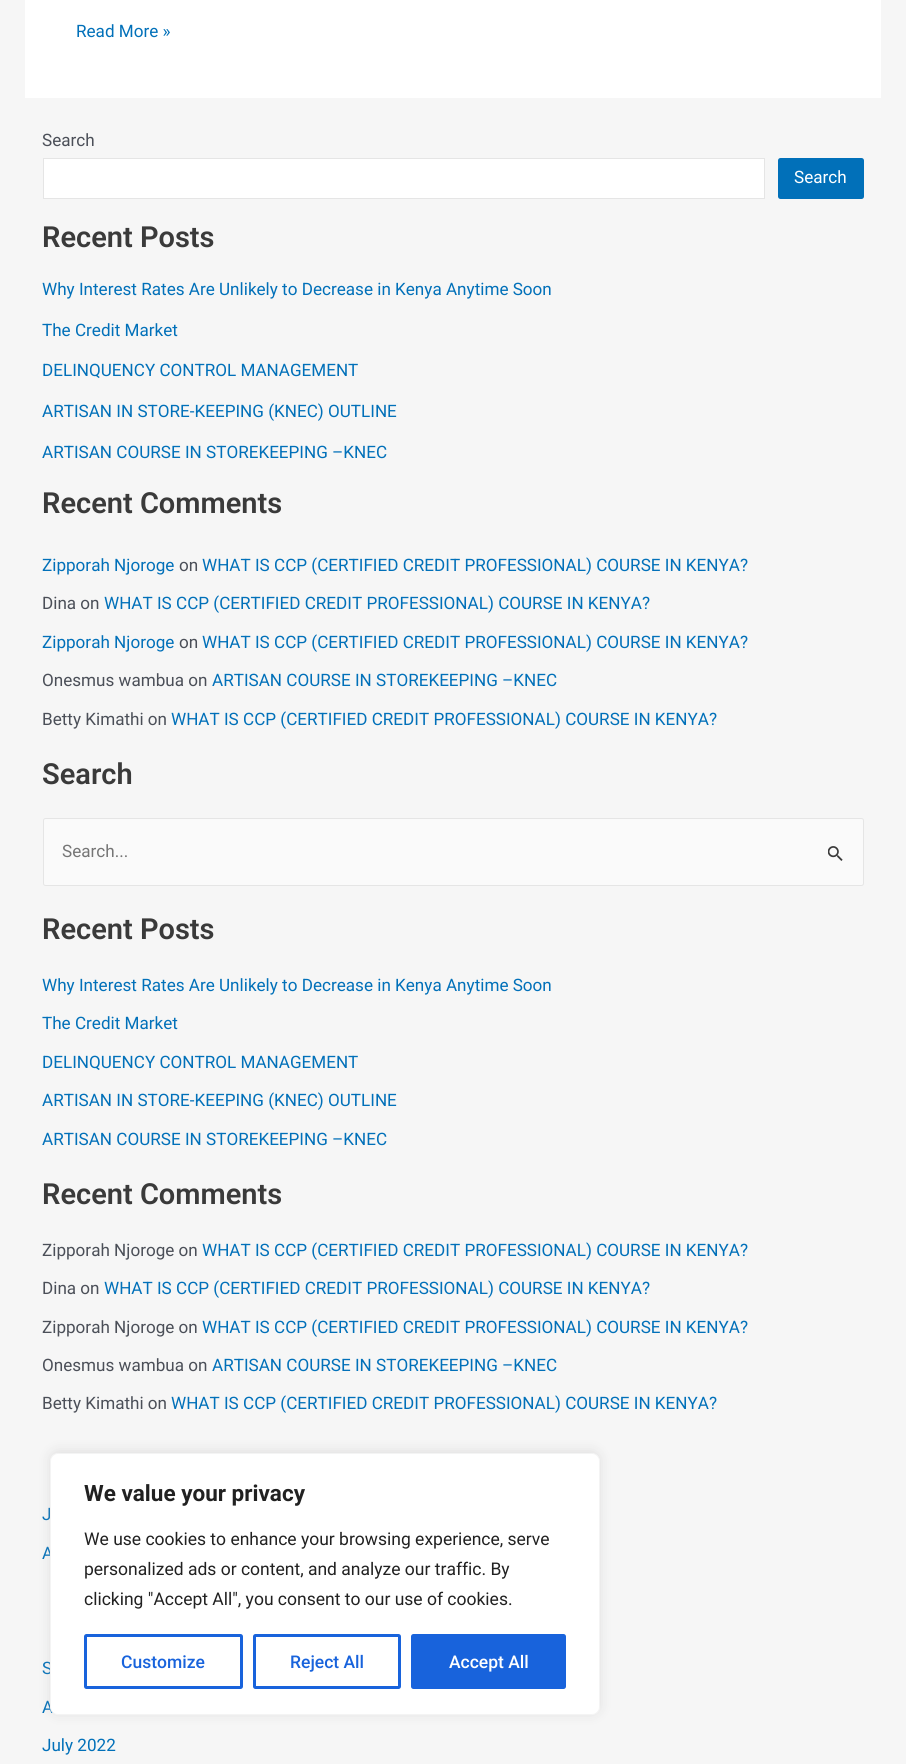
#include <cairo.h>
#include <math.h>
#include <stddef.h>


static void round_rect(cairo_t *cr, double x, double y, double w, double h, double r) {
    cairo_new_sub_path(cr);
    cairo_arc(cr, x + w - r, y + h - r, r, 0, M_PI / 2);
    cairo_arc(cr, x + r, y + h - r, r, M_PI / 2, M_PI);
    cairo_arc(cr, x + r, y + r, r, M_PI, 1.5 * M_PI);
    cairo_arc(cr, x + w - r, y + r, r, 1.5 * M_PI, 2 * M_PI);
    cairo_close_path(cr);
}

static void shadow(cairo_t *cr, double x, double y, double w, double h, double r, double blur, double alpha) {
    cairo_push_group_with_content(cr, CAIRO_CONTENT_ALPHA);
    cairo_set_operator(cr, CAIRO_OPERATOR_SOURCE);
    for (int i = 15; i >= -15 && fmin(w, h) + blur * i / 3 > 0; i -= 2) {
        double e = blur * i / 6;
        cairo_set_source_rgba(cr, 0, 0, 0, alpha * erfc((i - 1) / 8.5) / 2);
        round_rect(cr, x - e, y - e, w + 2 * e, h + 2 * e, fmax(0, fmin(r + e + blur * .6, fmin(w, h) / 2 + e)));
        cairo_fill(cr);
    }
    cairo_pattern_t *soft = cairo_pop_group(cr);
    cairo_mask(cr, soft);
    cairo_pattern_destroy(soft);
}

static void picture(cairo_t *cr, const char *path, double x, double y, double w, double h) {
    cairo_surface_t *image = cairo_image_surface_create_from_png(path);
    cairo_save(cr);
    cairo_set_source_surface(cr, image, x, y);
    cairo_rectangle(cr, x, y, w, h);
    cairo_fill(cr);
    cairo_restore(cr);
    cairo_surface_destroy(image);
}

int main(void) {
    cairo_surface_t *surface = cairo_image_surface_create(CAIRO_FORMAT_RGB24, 906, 1764);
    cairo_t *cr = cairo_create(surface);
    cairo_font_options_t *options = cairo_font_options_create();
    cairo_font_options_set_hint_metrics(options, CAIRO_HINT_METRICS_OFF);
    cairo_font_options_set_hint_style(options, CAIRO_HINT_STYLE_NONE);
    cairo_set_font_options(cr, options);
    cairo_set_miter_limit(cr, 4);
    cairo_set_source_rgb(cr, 0.961, 0.961, 0.961);
    cairo_paint(cr);
    cairo_set_source_rgb(cr, 1, 1, 1);
    cairo_rectangle(cr, 25, 0, 856, 98);
    cairo_fill(cr);
    cairo_select_font_face(cr, "Roboto", CAIRO_FONT_SLANT_NORMAL, CAIRO_FONT_WEIGHT_NORMAL);
    cairo_set_font_size(cr, 17.1);
    cairo_set_source_rgb(cr, 0.004, 0.439, 0.725);
    cairo_move_to(cr, 76, 37);
    cairo_show_text(cr, "Read More »");
    cairo_set_source_rgb(cr, 0.294, 0.31, 0.345);
    cairo_move_to(cr, 42, 146);
    cairo_show_text(cr, "Search");
    cairo_set_source_rgb(cr, 1, 1, 1);
    cairo_rectangle(cr, 43.5, 158.5, 721, 40);
    cairo_fill_preserve(cr);
    cairo_set_source_rgb(cr, 0.898, 0.898, 0.898);
    cairo_set_line_width(cr, 1);
    cairo_stroke(cr);
    cairo_set_source_rgb(cr, 0.004, 0.439, 0.725);
    round_rect(cr, 778, 158, 86, 41, 2.5);
    cairo_fill(cr);
    cairo_set_source_rgb(cr, 1, 1, 1);
    cairo_move_to(cr, 794, 183);
    cairo_show_text(cr, "Search");
    cairo_select_font_face(cr, "Roboto SemiBold", CAIRO_FONT_SLANT_NORMAL, CAIRO_FONT_WEIGHT_NORMAL);
    cairo_set_font_size(cr, 29);
    cairo_set_source_rgb(cr, 0.227, 0.227, 0.227);
    cairo_move_to(cr, 42, 247);
    cairo_show_text(cr, "Recent Posts");
    cairo_select_font_face(cr, "Roboto", CAIRO_FONT_SLANT_NORMAL, CAIRO_FONT_WEIGHT_NORMAL);
    cairo_set_font_size(cr, 17.1);
    cairo_set_source_rgb(cr, 0.004, 0.439, 0.725);
    cairo_move_to(cr, 42, 295);
    cairo_show_text(cr, "Why Interest Rates Are Unlikely to Decrease in Kenya Anytime Soon");
    cairo_move_to(cr, 42, 336);
    cairo_show_text(cr, "The Credit Market");
    cairo_move_to(cr, 42, 376);
    cairo_show_text(cr, "DELINQUENCY CONTROL MANAGEMENT");
    cairo_move_to(cr, 42, 417);
    cairo_show_text(cr, "ARTISAN IN STORE-KEEPING (KNEC) OUTLINE");
    cairo_move_to(cr, 42, 458);
    cairo_show_text(cr, "ARTISAN COURSE IN STOREKEEPING –KNEC");
    cairo_select_font_face(cr, "Roboto SemiBold", CAIRO_FONT_SLANT_NORMAL, CAIRO_FONT_WEIGHT_NORMAL);
    cairo_set_font_size(cr, 29);
    cairo_set_source_rgb(cr, 0.227, 0.227, 0.227);
    cairo_move_to(cr, 42, 513);
    cairo_show_text(cr, "Recent Comments");
    cairo_select_font_face(cr, "Roboto", CAIRO_FONT_SLANT_NORMAL, CAIRO_FONT_WEIGHT_NORMAL);
    cairo_set_font_size(cr, 17.1);
    cairo_set_source_rgb(cr, 0.004, 0.439, 0.725);
    cairo_move_to(cr, 42, 571);
    cairo_show_text(cr, "Zipporah Njoroge");
    cairo_set_source_rgb(cr, 0.294, 0.31, 0.345);
    cairo_move_to(cr, 179, 571);
    cairo_show_text(cr, "on");
    cairo_set_source_rgb(cr, 0.004, 0.439, 0.725);
    cairo_move_to(cr, 202, 571);
    cairo_show_text(cr, "WHAT IS CCP (CERTIFIED CREDIT PROFESSIONAL) COURSE IN KENYA?");
    cairo_set_source_rgb(cr, 0.294, 0.31, 0.345);
    cairo_move_to(cr, 42, 609);
    cairo_show_text(cr, "Dina on");
    cairo_set_source_rgb(cr, 0.004, 0.439, 0.725);
    cairo_move_to(cr, 104, 609);
    cairo_show_text(cr, "WHAT IS CCP (CERTIFIED CREDIT PROFESSIONAL) COURSE IN KENYA?");
    cairo_move_to(cr, 42, 648);
    cairo_show_text(cr, "Zipporah Njoroge");
    cairo_set_source_rgb(cr, 0.294, 0.31, 0.345);
    cairo_move_to(cr, 179, 648);
    cairo_show_text(cr, "on");
    cairo_set_source_rgb(cr, 0.004, 0.439, 0.725);
    cairo_move_to(cr, 202, 648);
    cairo_show_text(cr, "WHAT IS CCP (CERTIFIED CREDIT PROFESSIONAL) COURSE IN KENYA?");
    cairo_set_source_rgb(cr, 0.294, 0.31, 0.345);
    cairo_move_to(cr, 42, 686);
    cairo_show_text(cr, "Onesmus wambua on");
    cairo_set_source_rgb(cr, 0.004, 0.439, 0.725);
    cairo_move_to(cr, 212, 686);
    cairo_show_text(cr, "ARTISAN COURSE IN STOREKEEPING –KNEC");
    cairo_set_source_rgb(cr, 0.294, 0.31, 0.345);
    cairo_move_to(cr, 42, 725);
    cairo_show_text(cr, "Betty Kimathi on");
    cairo_set_source_rgb(cr, 0.004, 0.439, 0.725);
    cairo_move_to(cr, 171, 725);
    cairo_show_text(cr, "WHAT IS CCP (CERTIFIED CREDIT PROFESSIONAL) COURSE IN KENYA?");
    cairo_select_font_face(cr, "Roboto SemiBold", CAIRO_FONT_SLANT_NORMAL, CAIRO_FONT_WEIGHT_NORMAL);
    cairo_set_font_size(cr, 29);
    cairo_set_source_rgb(cr, 0.227, 0.227, 0.227);
    cairo_move_to(cr, 42, 784);
    cairo_show_text(cr, "Search");
    cairo_set_source_rgb(cr, 0.98, 0.98, 0.98);
    round_rect(cr, 43.5, 818.5, 820, 67, 2);
    cairo_fill_preserve(cr);
    cairo_set_source_rgb(cr, 0.898, 0.898, 0.898);
    cairo_stroke(cr);
    cairo_select_font_face(cr, "Roboto", CAIRO_FONT_SLANT_NORMAL, CAIRO_FONT_WEIGHT_NORMAL);
    cairo_set_font_size(cr, 17.1);
    cairo_set_source_rgb(cr, 0.459, 0.459, 0.459);
    cairo_move_to(cr, 62, 857);
    cairo_show_text(cr, "Search...");
    picture(cr, "img1.png", 828, 846, 15, 15);
    cairo_select_font_face(cr, "Roboto SemiBold", CAIRO_FONT_SLANT_NORMAL, CAIRO_FONT_WEIGHT_NORMAL);
    cairo_set_font_size(cr, 29);
    cairo_set_source_rgb(cr, 0.227, 0.227, 0.227);
    cairo_move_to(cr, 42, 939);
    cairo_show_text(cr, "Recent Posts");
    cairo_select_font_face(cr, "Roboto", CAIRO_FONT_SLANT_NORMAL, CAIRO_FONT_WEIGHT_NORMAL);
    cairo_set_font_size(cr, 17.1);
    cairo_set_source_rgb(cr, 0.004, 0.439, 0.725);
    cairo_move_to(cr, 42, 991);
    cairo_show_text(cr, "Why Interest Rates Are Unlikely to Decrease in Kenya Anytime Soon");
    cairo_move_to(cr, 42, 1029);
    cairo_show_text(cr, "The Credit Market");
    cairo_move_to(cr, 42, 1068);
    cairo_show_text(cr, "DELINQUENCY CONTROL MANAGEMENT");
    cairo_move_to(cr, 42, 1106);
    cairo_show_text(cr, "ARTISAN IN STORE-KEEPING (KNEC) OUTLINE");
    cairo_move_to(cr, 42, 1145);
    cairo_show_text(cr, "ARTISAN COURSE IN STOREKEEPING –KNEC");
    cairo_select_font_face(cr, "Roboto SemiBold", CAIRO_FONT_SLANT_NORMAL, CAIRO_FONT_WEIGHT_NORMAL);
    cairo_set_font_size(cr, 29);
    cairo_set_source_rgb(cr, 0.227, 0.227, 0.227);
    cairo_move_to(cr, 42, 1204);
    cairo_show_text(cr, "Recent Comments");
    cairo_select_font_face(cr, "Roboto", CAIRO_FONT_SLANT_NORMAL, CAIRO_FONT_WEIGHT_NORMAL);
    cairo_set_font_size(cr, 17.1);
    cairo_set_source_rgb(cr, 0.294, 0.31, 0.345);
    cairo_move_to(cr, 42, 1256);
    cairo_show_text(cr, "Zipporah Njoroge on");
    cairo_set_source_rgb(cr, 0.004, 0.439, 0.725);
    cairo_move_to(cr, 202, 1256);
    cairo_show_text(cr, "WHAT IS CCP (CERTIFIED CREDIT PROFESSIONAL) COURSE IN KENYA?");
    cairo_set_source_rgb(cr, 0.294, 0.31, 0.345);
    cairo_move_to(cr, 42, 1294);
    cairo_show_text(cr, "Dina on");
    cairo_set_source_rgb(cr, 0.004, 0.439, 0.725);
    cairo_move_to(cr, 104, 1294);
    cairo_show_text(cr, "WHAT IS CCP (CERTIFIED CREDIT PROFESSIONAL) COURSE IN KENYA?");
    cairo_set_source_rgb(cr, 0.294, 0.31, 0.345);
    cairo_move_to(cr, 42, 1333);
    cairo_show_text(cr, "Zipporah Njoroge on");
    cairo_set_source_rgb(cr, 0.004, 0.439, 0.725);
    cairo_move_to(cr, 202, 1333);
    cairo_show_text(cr, "WHAT IS CCP (CERTIFIED CREDIT PROFESSIONAL) COURSE IN KENYA?");
    cairo_set_source_rgb(cr, 0.294, 0.31, 0.345);
    cairo_move_to(cr, 42, 1371);
    cairo_show_text(cr, "Onesmus wambua on");
    cairo_set_source_rgb(cr, 0.004, 0.439, 0.725);
    cairo_move_to(cr, 212, 1371);
    cairo_show_text(cr, "ARTISAN COURSE IN STOREKEEPING –KNEC");
    cairo_set_source_rgb(cr, 0.294, 0.31, 0.345);
    cairo_move_to(cr, 42, 1409);
    cairo_show_text(cr, "Betty Kimathi on");
    cairo_set_source_rgb(cr, 0.004, 0.439, 0.725);
    cairo_move_to(cr, 171, 1409);
    cairo_show_text(cr, "WHAT IS CCP (CERTIFIED CREDIT PROFESSIONAL) COURSE IN KENYA?");
    cairo_move_to(cr, 42, 1520);
    cairo_show_text(cr, "J");
    cairo_move_to(cr, 42, 1559);
    cairo_show_text(cr, "A");
    cairo_move_to(cr, 42, 1674);
    cairo_show_text(cr, "S");
    cairo_move_to(cr, 42, 1713);
    cairo_show_text(cr, "A");
    cairo_move_to(cr, 42, 1751);
    cairo_show_text(cr, "July 2022");
    cairo_set_source_rgb(cr, 0.675, 0.671, 0.671);
    shadow(cr, 50, 1451, 550, 263, 8, 6, 0.3);
    cairo_set_source_rgb(cr, 1, 1, 1);
    round_rect(cr, 50.5, 1453.5, 549, 261, 7.5);
    cairo_fill_preserve(cr);
    cairo_set_source_rgb(cr, 0.957, 0.957, 0.957);
    cairo_stroke(cr);
    cairo_select_font_face(cr, "Roboto", CAIRO_FONT_SLANT_NORMAL, CAIRO_FONT_WEIGHT_BOLD);
    cairo_set_font_size(cr, 22.5);
    cairo_set_source_rgb(cr, 0.129, 0.129, 0.129);
    cairo_move_to(cr, 84, 1501);
    cairo_show_text(cr, "We value your privacy");
    cairo_select_font_face(cr, "Roboto", CAIRO_FONT_SLANT_NORMAL, CAIRO_FONT_WEIGHT_NORMAL);
    cairo_set_font_size(cr, 17.5);
    cairo_move_to(cr, 84, 1545);
    cairo_show_text(cr, "We use cookies to enhance your browsing experience, serve");
    cairo_move_to(cr, 84, 1575);
    cairo_show_text(cr, "personalized ads or content, and analyze our traffic. By");
    cairo_move_to(cr, 84, 1605);
    cairo_show_text(cr, "clicking \"Accept All\", you consent to our use of cookies.");
    round_rect(cr, 85.5, 1635.5, 156, 52, 1);
    cairo_set_source_rgb(cr, 0.094, 0.388, 0.863);
    cairo_set_line_width(cr, 3);
    cairo_stroke(cr);
    cairo_select_font_face(cr, "Roboto Medium", CAIRO_FONT_SLANT_NORMAL, CAIRO_FONT_WEIGHT_NORMAL);
    cairo_move_to(cr, 121, 1668);
    cairo_show_text(cr, "Customize");
    round_rect(cr, 254.5, 1635.5, 145, 52, 1);
    cairo_stroke(cr);
    cairo_move_to(cr, 290, 1668);
    cairo_show_text(cr, "Reject All");
    round_rect(cr, 412.5, 1635.5, 152, 52, 1);
    cairo_fill_preserve(cr);
    cairo_stroke(cr);
    cairo_set_source_rgb(cr, 1, 1, 1);
    cairo_move_to(cr, 449, 1668);
    cairo_show_text(cr, "Accept All");
    cairo_surface_write_to_png(surface, "page.png");
    cairo_font_options_destroy(options);
    cairo_destroy(cr);
    cairo_surface_destroy(surface);
    return 0;
}
